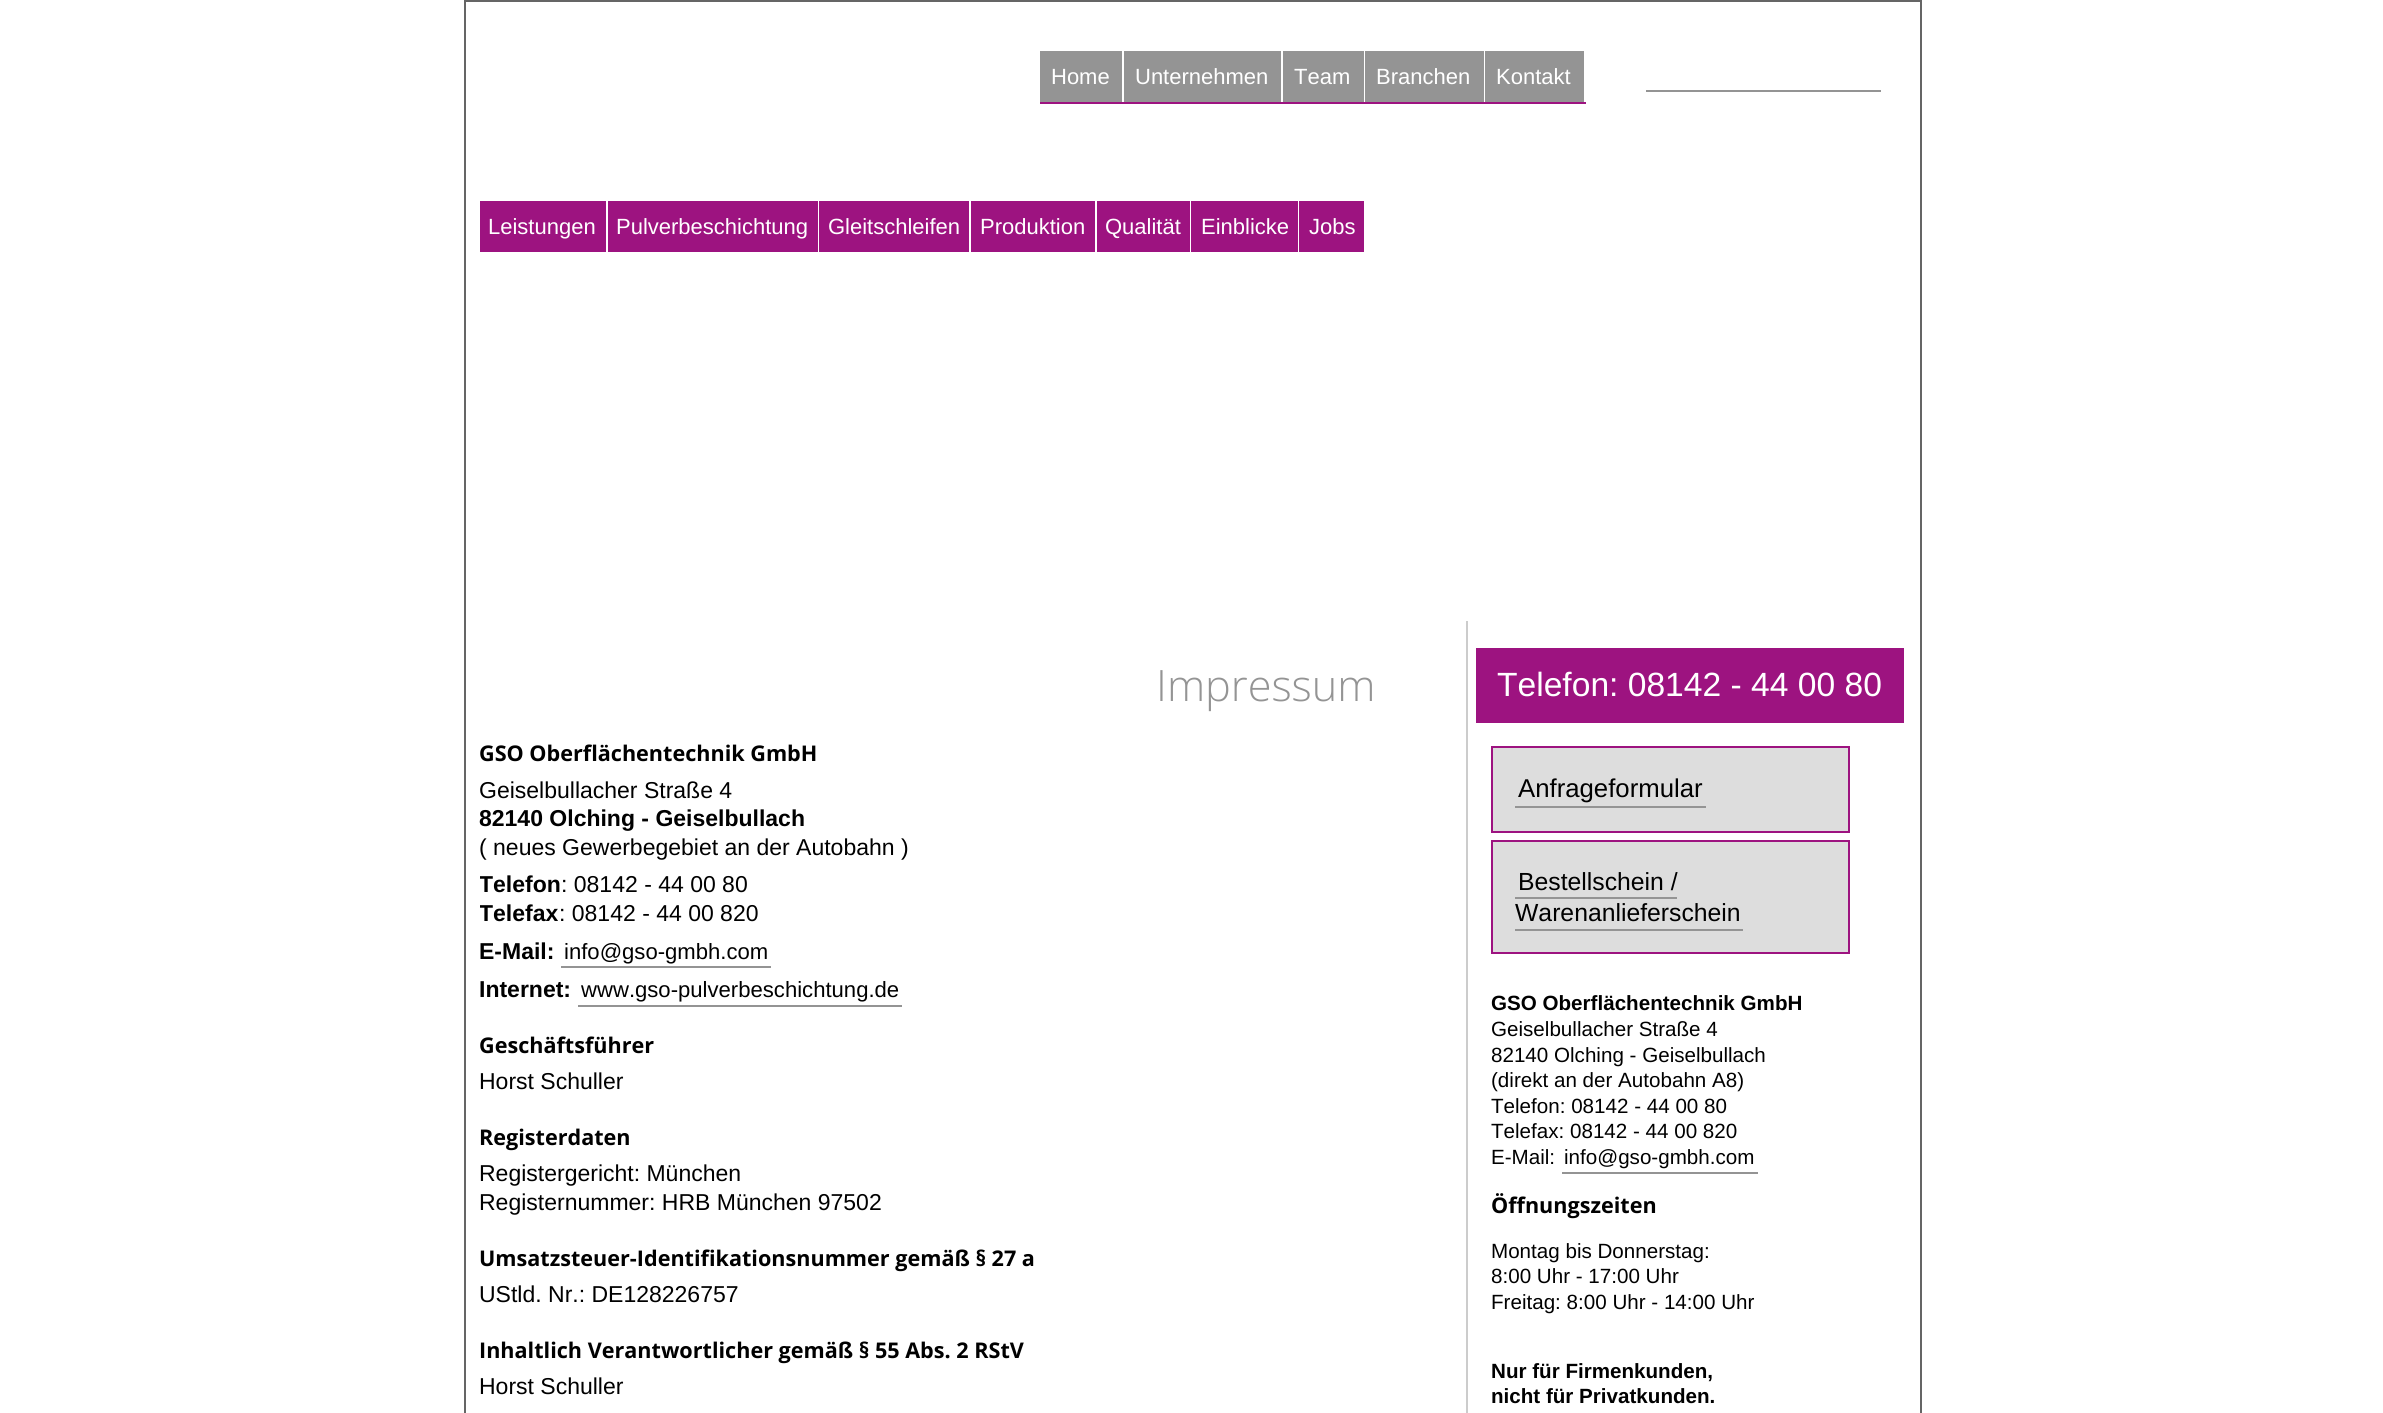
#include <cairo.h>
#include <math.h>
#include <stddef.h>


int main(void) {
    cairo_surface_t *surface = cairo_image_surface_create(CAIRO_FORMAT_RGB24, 2383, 1413);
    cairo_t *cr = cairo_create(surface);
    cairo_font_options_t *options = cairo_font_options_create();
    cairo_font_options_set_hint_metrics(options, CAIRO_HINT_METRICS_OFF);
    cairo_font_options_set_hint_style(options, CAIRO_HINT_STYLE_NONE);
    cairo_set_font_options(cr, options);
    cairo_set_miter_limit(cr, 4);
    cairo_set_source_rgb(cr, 1, 1, 1);
    cairo_paint(cr);
    cairo_rectangle(cr, 465, 1, 1456, 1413);
    cairo_set_source_rgb(cr, 0.396, 0.396, 0.396);
    cairo_stroke(cr);
    cairo_set_source_rgb(cr, 0.58, 0.58, 0.58);
    cairo_rectangle(cr, 1040, 51, 82, 51);
    cairo_fill(cr);
    cairo_set_source_rgb(cr, 0.616, 0.075, 0.502);
    cairo_rectangle(cr, 1040, 102, 546, 2);
    cairo_fill(cr);
    cairo_select_font_face(cr, "Liberation Sans", CAIRO_FONT_SLANT_NORMAL, CAIRO_FONT_WEIGHT_NORMAL);
    cairo_set_font_size(cr, 22);
    cairo_set_source_rgb(cr, 1, 1, 1);
    cairo_move_to(cr, 1051, 84);
    cairo_show_text(cr, "Home");
    cairo_set_source_rgb(cr, 0.58, 0.58, 0.58);
    cairo_rectangle(cr, 1124, 51, 157, 51);
    cairo_fill(cr);
    cairo_set_source_rgb(cr, 1, 1, 1);
    cairo_move_to(cr, 1135, 84);
    cairo_show_text(cr, "Unternehmen");
    cairo_set_source_rgb(cr, 0.58, 0.58, 0.58);
    cairo_rectangle(cr, 1283, 51, 81, 51);
    cairo_fill(cr);
    cairo_set_source_rgb(cr, 1, 1, 1);
    cairo_move_to(cr, 1294, 84);
    cairo_show_text(cr, "Team");
    cairo_set_source_rgb(cr, 0.58, 0.58, 0.58);
    cairo_rectangle(cr, 1365, 51, 119, 51);
    cairo_fill(cr);
    cairo_set_source_rgb(cr, 1, 1, 1);
    cairo_move_to(cr, 1376, 84);
    cairo_show_text(cr, "Branchen");
    cairo_set_source_rgb(cr, 0.58, 0.58, 0.58);
    cairo_rectangle(cr, 1485, 51, 99, 51);
    cairo_fill(cr);
    cairo_set_source_rgb(cr, 1, 1, 1);
    cairo_move_to(cr, 1496, 84);
    cairo_show_text(cr, "Kontakt");
    cairo_set_source_rgb(cr, 0.58, 0.58, 0.58);
    cairo_rectangle(cr, 1646, 90, 235, 2);
    cairo_fill(cr);
    cairo_set_source_rgb(cr, 0.616, 0.075, 0.502);
    cairo_rectangle(cr, 480, 201, 126, 51);
    cairo_fill(cr);
    cairo_set_source_rgb(cr, 1, 1, 1);
    cairo_move_to(cr, 488, 234);
    cairo_show_text(cr, "Leistungen");
    cairo_set_source_rgb(cr, 0.616, 0.075, 0.502);
    cairo_rectangle(cr, 608, 201, 210, 51);
    cairo_fill(cr);
    cairo_set_source_rgb(cr, 1, 1, 1);
    cairo_move_to(cr, 616, 234);
    cairo_show_text(cr, "Pulverbeschichtung");
    cairo_set_source_rgb(cr, 0.616, 0.075, 0.502);
    cairo_rectangle(cr, 819, 201, 150, 51);
    cairo_fill(cr);
    cairo_set_source_rgb(cr, 1, 1, 1);
    cairo_move_to(cr, 828, 234);
    cairo_show_text(cr, "Gleitschleifen");
    cairo_set_source_rgb(cr, 0.616, 0.075, 0.502);
    cairo_rectangle(cr, 971, 201, 124, 51);
    cairo_fill(cr);
    cairo_set_source_rgb(cr, 1, 1, 1);
    cairo_move_to(cr, 980, 234);
    cairo_show_text(cr, "Produktion");
    cairo_set_source_rgb(cr, 0.616, 0.075, 0.502);
    cairo_rectangle(cr, 1097, 201, 93, 51);
    cairo_fill(cr);
    cairo_set_source_rgb(cr, 1, 1, 1);
    cairo_move_to(cr, 1105, 234);
    cairo_show_text(cr, "Qualität");
    cairo_set_source_rgb(cr, 0.616, 0.075, 0.502);
    cairo_rectangle(cr, 1191, 201, 107, 51);
    cairo_fill(cr);
    cairo_set_source_rgb(cr, 1, 1, 1);
    cairo_move_to(cr, 1201, 234);
    cairo_show_text(cr, "Einblicke");
    cairo_set_source_rgb(cr, 0.616, 0.075, 0.502);
    cairo_rectangle(cr, 1299, 201, 65, 51);
    cairo_fill(cr);
    cairo_set_source_rgb(cr, 1, 1, 1);
    cairo_move_to(cr, 1309, 234);
    cairo_show_text(cr, "Jobs");
    cairo_select_font_face(cr, "Open Sans Light", CAIRO_FONT_SLANT_NORMAL, CAIRO_FONT_WEIGHT_NORMAL);
    cairo_set_font_size(cr, 43.25);
    cairo_set_source_rgb(cr, 0.58, 0.58, 0.58);
    cairo_move_to(cr, 1156, 701);
    cairo_show_text(cr, "Impressum");
    cairo_select_font_face(cr, "Open Sans", CAIRO_FONT_SLANT_NORMAL, CAIRO_FONT_WEIGHT_BOLD);
    cairo_set_font_size(cr, 21.6);
    cairo_set_source_rgb(cr, 0, 0, 0);
    cairo_move_to(cr, 479, 761);
    cairo_show_text(cr, "GSO Oberflächentechnik GmbH");
    cairo_select_font_face(cr, "Liberation Sans", CAIRO_FONT_SLANT_NORMAL, CAIRO_FONT_WEIGHT_NORMAL);
    cairo_set_font_size(cr, 23);
    cairo_move_to(cr, 479, 798);
    cairo_show_text(cr, "Geiselbullacher Straße 4");
    cairo_select_font_face(cr, "Liberation Sans", CAIRO_FONT_SLANT_NORMAL, CAIRO_FONT_WEIGHT_BOLD);
    cairo_move_to(cr, 479, 826);
    cairo_show_text(cr, "82140 Olching - Geiselbullach");
    cairo_select_font_face(cr, "Liberation Sans", CAIRO_FONT_SLANT_NORMAL, CAIRO_FONT_WEIGHT_NORMAL);
    cairo_move_to(cr, 479, 855);
    cairo_show_text(cr, "( neues Gewerbegebiet an der Autobahn )");
    cairo_save(cr);
    cairo_rectangle(cr, 480, 722, 926, 291);
    cairo_clip(cr);
    cairo_select_font_face(cr, "Liberation Sans", CAIRO_FONT_SLANT_NORMAL, CAIRO_FONT_WEIGHT_BOLD);
    cairo_move_to(cr, 479, 892);
    cairo_show_text(cr, "Telefon");
    cairo_restore(cr);
    cairo_move_to(cr, 561, 892);
    cairo_show_text(cr, ": 08142 - 44 00 80");
    cairo_save(cr);
    cairo_rectangle(cr, 480, 722, 926, 291);
    cairo_clip(cr);
    cairo_select_font_face(cr, "Liberation Sans", CAIRO_FONT_SLANT_NORMAL, CAIRO_FONT_WEIGHT_BOLD);
    cairo_move_to(cr, 479, 921);
    cairo_show_text(cr, "Telefax");
    cairo_restore(cr);
    cairo_move_to(cr, 559, 921);
    cairo_show_text(cr, ": 08142 - 44 00 820");
    cairo_select_font_face(cr, "Liberation Sans", CAIRO_FONT_SLANT_NORMAL, CAIRO_FONT_WEIGHT_BOLD);
    cairo_move_to(cr, 479, 959);
    cairo_show_text(cr, "E-Mail:");
    cairo_select_font_face(cr, "Liberation Sans", CAIRO_FONT_SLANT_NORMAL, CAIRO_FONT_WEIGHT_NORMAL);
    cairo_set_font_size(cr, 22.1);
    cairo_move_to(cr, 564, 959);
    cairo_show_text(cr, "info@gso-gmbh.com");
    cairo_set_source_rgb(cr, 0.58, 0.58, 0.58);
    cairo_rectangle(cr, 561, 966, 210, 2);
    cairo_fill(cr);
    cairo_select_font_face(cr, "Liberation Sans", CAIRO_FONT_SLANT_NORMAL, CAIRO_FONT_WEIGHT_BOLD);
    cairo_set_font_size(cr, 23);
    cairo_set_source_rgb(cr, 0, 0, 0);
    cairo_move_to(cr, 479, 997);
    cairo_show_text(cr, "Internet:");
    cairo_select_font_face(cr, "Liberation Sans", CAIRO_FONT_SLANT_NORMAL, CAIRO_FONT_WEIGHT_NORMAL);
    cairo_set_font_size(cr, 22.1);
    cairo_move_to(cr, 581, 997);
    cairo_show_text(cr, "www.gso-pulverbeschichtung.de");
    cairo_set_source_rgb(cr, 0.58, 0.58, 0.58);
    cairo_rectangle(cr, 578, 1005, 324, 2);
    cairo_fill(cr);
    cairo_select_font_face(cr, "Open Sans", CAIRO_FONT_SLANT_NORMAL, CAIRO_FONT_WEIGHT_BOLD);
    cairo_set_font_size(cr, 21.6);
    cairo_set_source_rgb(cr, 0, 0, 0);
    cairo_move_to(cr, 479, 1053);
    cairo_show_text(cr, "Geschäftsführer");
    cairo_select_font_face(cr, "Liberation Sans", CAIRO_FONT_SLANT_NORMAL, CAIRO_FONT_WEIGHT_NORMAL);
    cairo_set_font_size(cr, 23);
    cairo_move_to(cr, 479, 1089);
    cairo_show_text(cr, "Horst Schuller");
    cairo_select_font_face(cr, "Open Sans", CAIRO_FONT_SLANT_NORMAL, CAIRO_FONT_WEIGHT_BOLD);
    cairo_set_font_size(cr, 21.6);
    cairo_move_to(cr, 479, 1145);
    cairo_show_text(cr, "Registerdaten");
    cairo_select_font_face(cr, "Liberation Sans", CAIRO_FONT_SLANT_NORMAL, CAIRO_FONT_WEIGHT_NORMAL);
    cairo_set_font_size(cr, 23);
    cairo_move_to(cr, 479, 1181);
    cairo_show_text(cr, "Registergericht: München");
    cairo_move_to(cr, 479, 1210);
    cairo_show_text(cr, "Registernummer: HRB München 97502");
    cairo_select_font_face(cr, "Open Sans", CAIRO_FONT_SLANT_NORMAL, CAIRO_FONT_WEIGHT_BOLD);
    cairo_set_font_size(cr, 21.6);
    cairo_move_to(cr, 479, 1266);
    cairo_show_text(cr, "Umsatzsteuer-Identifikationsnummer gemäß § 27 a");
    cairo_select_font_face(cr, "Liberation Sans", CAIRO_FONT_SLANT_NORMAL, CAIRO_FONT_WEIGHT_NORMAL);
    cairo_set_font_size(cr, 23);
    cairo_move_to(cr, 479, 1302);
    cairo_show_text(cr, "UStld. Nr.: DE128226757");
    cairo_select_font_face(cr, "Open Sans", CAIRO_FONT_SLANT_NORMAL, CAIRO_FONT_WEIGHT_BOLD);
    cairo_set_font_size(cr, 21.6);
    cairo_move_to(cr, 479, 1358);
    cairo_show_text(cr, "Inhaltlich Verantwortlicher gemäß § 55 Abs. 2 RStV");
    cairo_select_font_face(cr, "Liberation Sans", CAIRO_FONT_SLANT_NORMAL, CAIRO_FONT_WEIGHT_NORMAL);
    cairo_set_font_size(cr, 23);
    cairo_move_to(cr, 479, 1394);
    cairo_show_text(cr, "Horst Schuller");
    cairo_set_source_rgb(cr, 0.8, 0.8, 0.8);
    cairo_rectangle(cr, 1466, 621, 2, 792);
    cairo_fill(cr);
    cairo_set_source_rgb(cr, 0.616, 0.075, 0.502);
    cairo_rectangle(cr, 1476, 648, 428, 75);
    cairo_fill(cr);
    cairo_set_font_size(cr, 33.6);
    cairo_set_source_rgb(cr, 1, 1, 1);
    cairo_move_to(cr, 1497, 696);
    cairo_show_text(cr, "Telefon: 08142 - 44 00 80");
    cairo_set_source_rgb(cr, 0.867, 0.867, 0.867);
    cairo_rectangle(cr, 1492, 747, 357, 85);
    cairo_fill_preserve(cr);
    cairo_set_source_rgb(cr, 0.616, 0.075, 0.502);
    cairo_stroke(cr);
    cairo_set_font_size(cr, 25.75);
    cairo_set_source_rgb(cr, 0, 0, 0);
    cairo_move_to(cr, 1518, 797);
    cairo_show_text(cr, "Anfrageformular");
    cairo_set_source_rgb(cr, 0.58, 0.58, 0.58);
    cairo_rectangle(cr, 1515, 806, 191, 2);
    cairo_fill(cr);
    cairo_set_source_rgb(cr, 0.867, 0.867, 0.867);
    cairo_rectangle(cr, 1492, 841, 357, 112);
    cairo_fill_preserve(cr);
    cairo_set_source_rgb(cr, 0.616, 0.075, 0.502);
    cairo_stroke(cr);
    cairo_set_font_size(cr, 24.75);
    cairo_set_source_rgb(cr, 0, 0, 0);
    cairo_move_to(cr, 1518, 890);
    cairo_show_text(cr, "Bestellschein /");
    cairo_move_to(cr, 1515, 921);
    cairo_show_text(cr, "Warenanlieferschein");
    cairo_set_source_rgb(cr, 0.58, 0.58, 0.58);
    cairo_rectangle(cr, 1515, 897, 162, 2);
    cairo_fill(cr);
    cairo_rectangle(cr, 1515, 929, 228, 2);
    cairo_fill(cr);
    cairo_select_font_face(cr, "Liberation Sans", CAIRO_FONT_SLANT_NORMAL, CAIRO_FONT_WEIGHT_BOLD);
    cairo_set_font_size(cr, 20.6);
    cairo_set_source_rgb(cr, 0, 0, 0);
    cairo_move_to(cr, 1491, 1010);
    cairo_show_text(cr, "GSO Oberflächentechnik GmbH");
    cairo_select_font_face(cr, "Liberation Sans", CAIRO_FONT_SLANT_NORMAL, CAIRO_FONT_WEIGHT_NORMAL);
    cairo_move_to(cr, 1491, 1036);
    cairo_show_text(cr, "Geiselbullacher Straße 4");
    cairo_move_to(cr, 1491, 1062);
    cairo_show_text(cr, "82140 Olching - Geiselbullach");
    cairo_move_to(cr, 1491, 1087);
    cairo_show_text(cr, "(direkt an der Autobahn A8)");
    cairo_move_to(cr, 1491, 1113);
    cairo_show_text(cr, "Telefon: 08142 - 44 00 80");
    cairo_move_to(cr, 1491, 1138);
    cairo_show_text(cr, "Telefax: 08142 - 44 00 820");
    cairo_move_to(cr, 1491, 1164);
    cairo_show_text(cr, "E-Mail:");
    cairo_move_to(cr, 1564, 1164);
    cairo_show_text(cr, "info@gso-gmbh.com");
    cairo_set_source_rgb(cr, 0.58, 0.58, 0.58);
    cairo_rectangle(cr, 1562, 1172, 196, 2);
    cairo_fill(cr);
    cairo_select_font_face(cr, "Open Sans", CAIRO_FONT_SLANT_NORMAL, CAIRO_FONT_WEIGHT_BOLD);
    cairo_set_font_size(cr, 21.6);
    cairo_set_source_rgb(cr, 0, 0, 0);
    cairo_move_to(cr, 1491, 1213);
    cairo_show_text(cr, "Öffnungszeiten");
    cairo_select_font_face(cr, "Liberation Sans", CAIRO_FONT_SLANT_NORMAL, CAIRO_FONT_WEIGHT_NORMAL);
    cairo_set_font_size(cr, 20.6);
    cairo_move_to(cr, 1491, 1258);
    cairo_show_text(cr, "Montag bis Donnerstag:");
    cairo_move_to(cr, 1491, 1283);
    cairo_show_text(cr, "8:00 Uhr - 17:00 Uhr");
    cairo_move_to(cr, 1491, 1309);
    cairo_show_text(cr, "Freitag: 8:00 Uhr - 14:00 Uhr");
    cairo_select_font_face(cr, "Liberation Sans", CAIRO_FONT_SLANT_NORMAL, CAIRO_FONT_WEIGHT_BOLD);
    cairo_move_to(cr, 1491, 1378);
    cairo_show_text(cr, "Nur für Firmenkunden,");
    cairo_move_to(cr, 1491, 1403);
    cairo_show_text(cr, "nicht für Privatkunden.");
    cairo_surface_write_to_png(surface, "page.png");
    cairo_font_options_destroy(options);
    cairo_destroy(cr);
    cairo_surface_destroy(surface);
    return 0;
}
